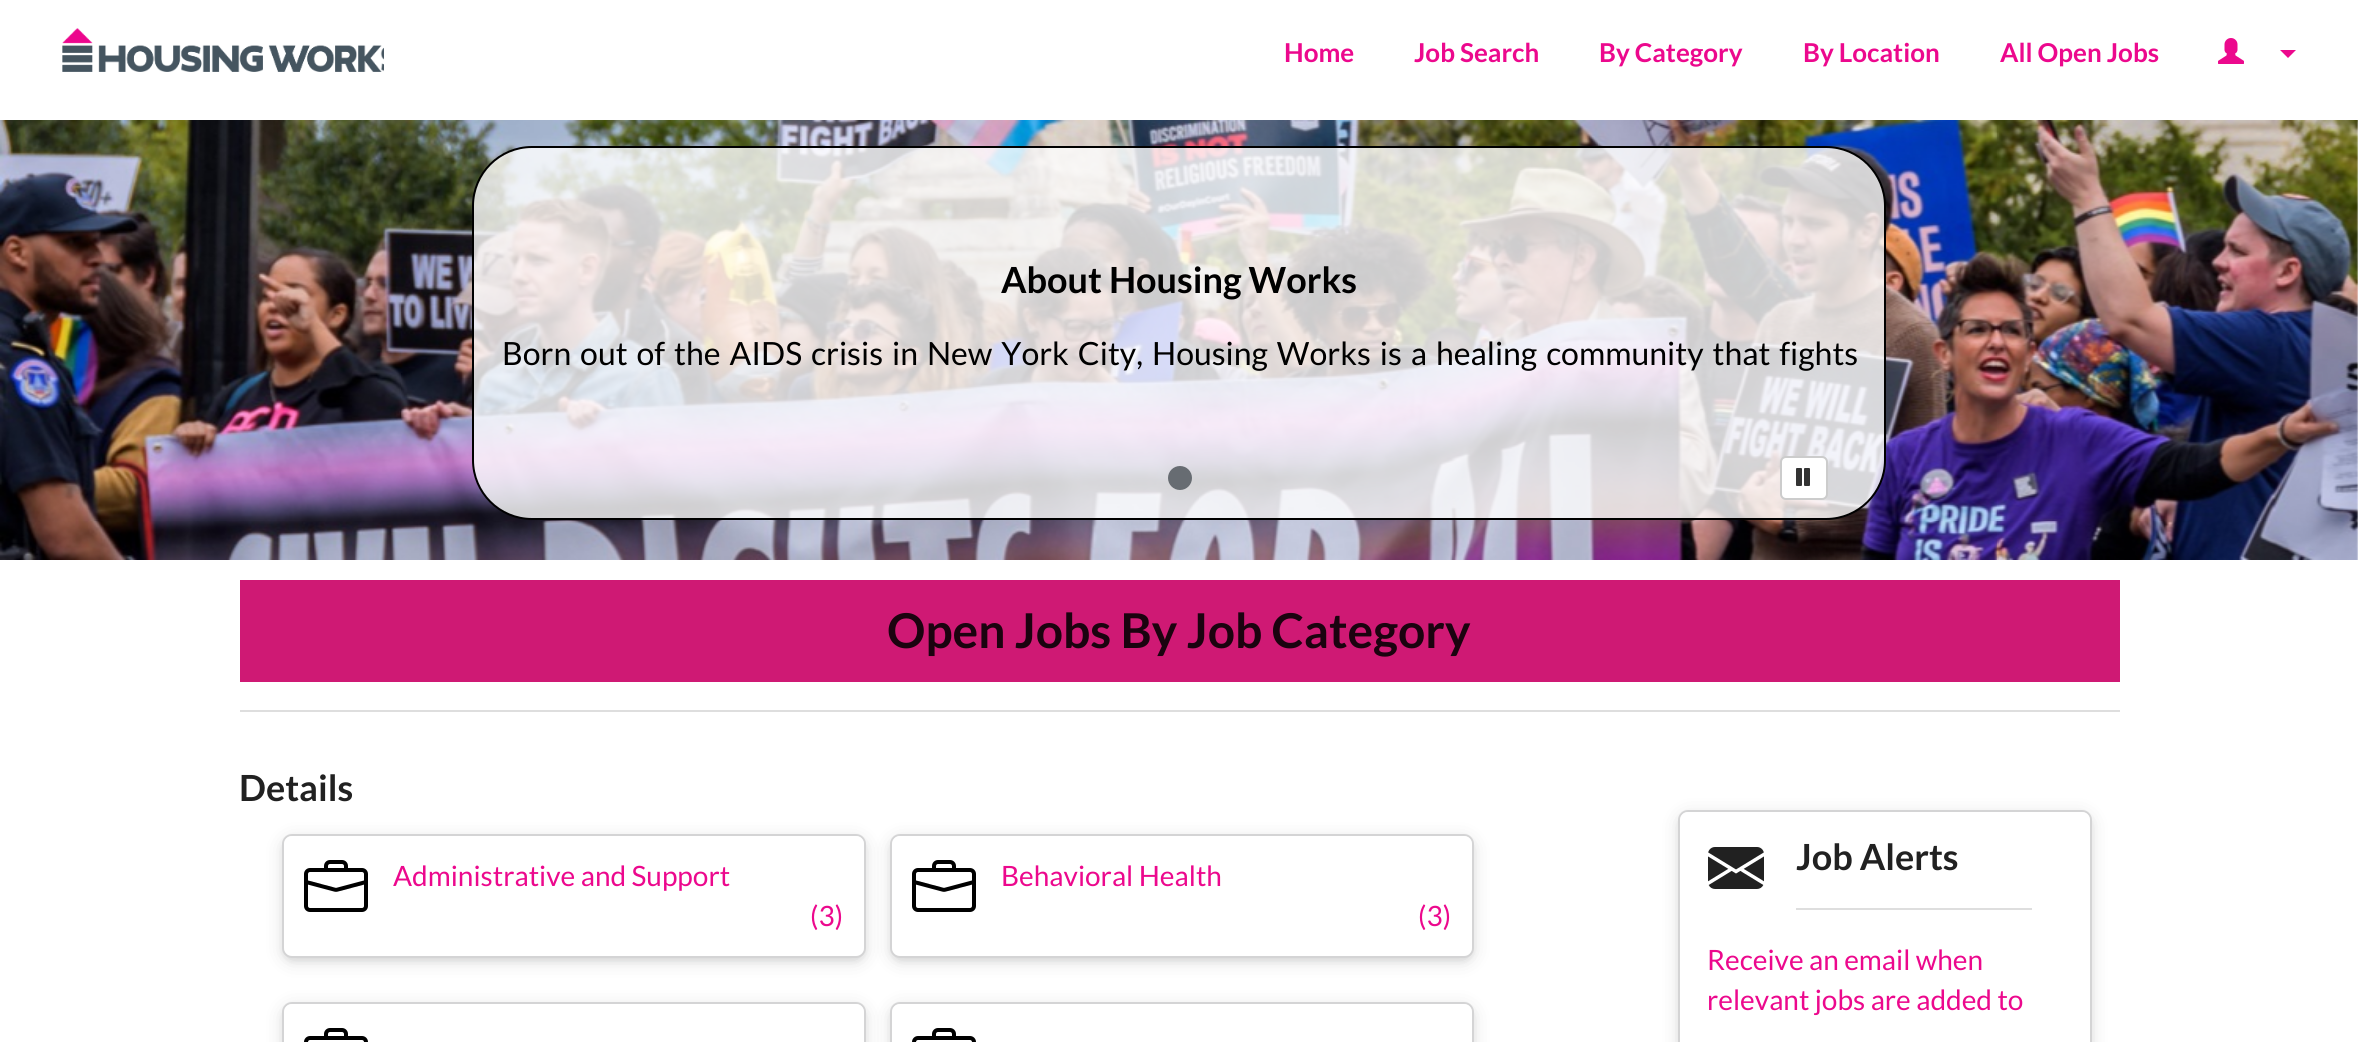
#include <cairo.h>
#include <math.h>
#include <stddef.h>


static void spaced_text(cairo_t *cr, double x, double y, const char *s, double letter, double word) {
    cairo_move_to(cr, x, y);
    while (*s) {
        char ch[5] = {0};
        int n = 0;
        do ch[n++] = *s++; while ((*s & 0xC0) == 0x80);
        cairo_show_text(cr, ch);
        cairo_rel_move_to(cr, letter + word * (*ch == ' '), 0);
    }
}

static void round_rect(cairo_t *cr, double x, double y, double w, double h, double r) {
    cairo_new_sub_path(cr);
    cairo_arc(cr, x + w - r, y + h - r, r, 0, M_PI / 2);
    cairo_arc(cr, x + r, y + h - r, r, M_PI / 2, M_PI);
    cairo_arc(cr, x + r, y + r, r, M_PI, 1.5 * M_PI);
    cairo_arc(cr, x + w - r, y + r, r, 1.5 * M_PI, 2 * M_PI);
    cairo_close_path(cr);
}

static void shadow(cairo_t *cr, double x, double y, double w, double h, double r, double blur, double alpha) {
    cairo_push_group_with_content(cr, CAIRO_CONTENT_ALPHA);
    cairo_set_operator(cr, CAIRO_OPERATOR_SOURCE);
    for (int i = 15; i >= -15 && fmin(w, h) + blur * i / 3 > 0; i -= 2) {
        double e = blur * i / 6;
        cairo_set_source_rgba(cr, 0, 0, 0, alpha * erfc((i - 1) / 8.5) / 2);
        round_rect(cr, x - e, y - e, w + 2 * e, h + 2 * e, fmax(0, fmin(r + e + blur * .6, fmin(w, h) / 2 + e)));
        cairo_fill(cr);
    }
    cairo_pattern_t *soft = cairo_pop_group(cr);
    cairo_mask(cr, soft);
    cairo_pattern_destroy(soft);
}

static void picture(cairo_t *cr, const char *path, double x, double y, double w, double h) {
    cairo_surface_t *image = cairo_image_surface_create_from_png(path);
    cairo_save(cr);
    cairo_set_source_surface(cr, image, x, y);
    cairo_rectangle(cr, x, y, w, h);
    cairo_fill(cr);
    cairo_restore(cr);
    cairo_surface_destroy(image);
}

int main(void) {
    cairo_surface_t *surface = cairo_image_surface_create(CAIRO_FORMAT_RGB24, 2358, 1042);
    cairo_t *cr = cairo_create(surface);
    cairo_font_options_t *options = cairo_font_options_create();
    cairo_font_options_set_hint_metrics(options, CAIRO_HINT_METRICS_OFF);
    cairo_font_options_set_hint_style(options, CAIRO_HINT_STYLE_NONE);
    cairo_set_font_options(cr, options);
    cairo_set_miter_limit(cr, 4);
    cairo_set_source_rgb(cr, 1, 1, 1);
    cairo_paint(cr);
    cairo_rectangle(cr, -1, -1, 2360, 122);
    cairo_set_source_rgb(cr, 0.831, 0.831, 0.835);
    cairo_stroke(cr);
    cairo_save(cr);
    cairo_rectangle(cr, 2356, 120, 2, 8);
    cairo_clip(cr);
    cairo_set_source_rgb(cr, 0.831, 0.831, 0.835);
    shadow(cr, 0, 2, 2358, 120, 0, 3, 1);
    cairo_restore(cr);
    picture(cr, "img1.png", 62, 28, 322, 44);
    cairo_select_font_face(cr, "Lato", CAIRO_FONT_SLANT_NORMAL, CAIRO_FONT_WEIGHT_BOLD);
    cairo_set_font_size(cr, 26);
    cairo_set_source_rgb(cr, 0.925, 0.035, 0.553);
    cairo_move_to(cr, 1284, 62);
    cairo_show_text(cr, "Home");
    cairo_move_to(cr, 1414, 62);
    cairo_show_text(cr, "Job Search");
    cairo_move_to(cr, 1599, 62);
    cairo_show_text(cr, "By Category");
    cairo_move_to(cr, 1803, 62);
    cairo_show_text(cr, "By Location");
    cairo_move_to(cr, 2000, 62);
    cairo_show_text(cr, "All Open Jobs");
    picture(cr, "img2.png", 2218, 38, 26, 26);
    cairo_new_path(cr);
    cairo_move_to(cr, 2280, 50);
    cairo_line_to(cr, 2296, 50);
    cairo_line_to(cr, 2288, 58);
    cairo_close_path(cr);
    cairo_fill(cr);
    picture(cr, "img3.png", 0, 120, 2358, 440);
    cairo_set_source_rgba(cr, 1, 1, 1, 0.8);
    round_rect(cr, 473, 147, 1412, 372, 59);
    cairo_fill_preserve(cr);
    cairo_set_source_rgb(cr, 0, 0, 0);
    cairo_stroke(cr);
    cairo_set_font_size(cr, 36);
    cairo_move_to(cr, 1001, 293);
    cairo_show_text(cr, "About Housing Works");
    cairo_select_font_face(cr, "Lato", CAIRO_FONT_SLANT_NORMAL, CAIRO_FONT_WEIGHT_NORMAL);
    cairo_set_font_size(cr, 32);
    spaced_text(cr, 502, 365, "Born out of the AIDS crisis in New York City, Housing Works is a healing community that fights", 0, 2.75);
    cairo_set_source_rgb(cr, 0.404, 0.424, 0.447);
    cairo_new_path(cr);
    cairo_arc(cr, 1180, 478, 11, 0, 2 * M_PI);
    cairo_fill_preserve(cr);
    cairo_stroke(cr);
    cairo_set_source_rgb(cr, 1, 1, 1);
    round_rect(cr, 1781, 457, 46, 42, 5);
    cairo_fill_preserve(cr);
    cairo_set_source_rgb(cr, 0.8, 0.8, 0.8);
    cairo_stroke(cr);
    picture(cr, "img4.png", 1796, 468, 14, 18);
    cairo_set_source_rgb(cr, 0.812, 0.098, 0.455);
    cairo_rectangle(cr, 240, 580, 1880, 102);
    cairo_fill(cr);
    cairo_select_font_face(cr, "Lato", CAIRO_FONT_SLANT_NORMAL, CAIRO_FONT_WEIGHT_BOLD);
    cairo_set_font_size(cr, 48);
    cairo_set_source_rgb(cr, 0.106, 0.012, 0.059);
    cairo_move_to(cr, 887, 648);
    cairo_show_text(cr, "Open Jobs By Job Category");
    cairo_set_source_rgb(cr, 0.871, 0.871, 0.871);
    cairo_rectangle(cr, 240, 710, 1880, 2);
    cairo_fill(cr);
    cairo_set_font_size(cr, 36);
    cairo_set_source_rgb(cr, 0.129, 0.129, 0.129);
    cairo_move_to(cr, 239, 801);
    cairo_show_text(cr, "Details");
    cairo_set_source_rgb(cr, 0.133, 0.141, 0.149);
    shadow(cr, 284, 840, 580, 120, 8, 10, 0.15);
    shadow(cr, 284, 840, 580, 120, 8, 4, 0.12);
    round_rect(cr, 283, 835, 582, 122, 9);
    cairo_set_source_rgb(cr, 0.831, 0.831, 0.835);
    cairo_stroke(cr);
    cairo_set_source_rgb(cr, 1, 1, 1);
    round_rect(cr, 284, 836, 580, 120, 8);
    cairo_fill(cr);
    picture(cr, "img5.png", 304, 860, 64, 52);
    cairo_select_font_face(cr, "Lato", CAIRO_FONT_SLANT_NORMAL, CAIRO_FONT_WEIGHT_NORMAL);
    cairo_set_font_size(cr, 28);
    cairo_set_source_rgb(cr, 0.925, 0.035, 0.553);
    cairo_move_to(cr, 393, 886);
    cairo_show_text(cr, "Administrative and Support");
    cairo_move_to(cr, 810, 926);
    cairo_show_text(cr, "(3)");
    cairo_set_source_rgb(cr, 0.133, 0.141, 0.149);
    shadow(cr, 892, 840, 580, 120, 8, 10, 0.15);
    shadow(cr, 892, 840, 580, 120, 8, 4, 0.12);
    round_rect(cr, 891, 835, 582, 122, 9);
    cairo_set_source_rgb(cr, 0.831, 0.831, 0.835);
    cairo_stroke(cr);
    cairo_set_source_rgb(cr, 1, 1, 1);
    round_rect(cr, 892, 836, 580, 120, 8);
    cairo_fill(cr);
    picture(cr, "img5.png", 912, 860, 64, 52);
    cairo_set_source_rgb(cr, 0.925, 0.035, 0.553);
    cairo_move_to(cr, 1001, 886);
    cairo_show_text(cr, "Behavioral Health");
    cairo_move_to(cr, 1418, 926);
    cairo_show_text(cr, "(3)");
    cairo_set_source_rgb(cr, 0.133, 0.141, 0.149);
    shadow(cr, 284, 1008, 580, 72, 8, 10, 0.15);
    shadow(cr, 284, 1008, 580, 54, 8, 4, 0.12);
    round_rect(cr, 283, 1003, 582, 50, 9);
    cairo_set_source_rgb(cr, 0.831, 0.831, 0.835);
    cairo_stroke(cr);
    cairo_set_source_rgb(cr, 1, 1, 1);
    round_rect(cr, 284, 1004, 580, 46, 8);
    cairo_fill(cr);
    picture(cr, "img6.png", 304, 1028, 64, 14);
    cairo_set_source_rgb(cr, 0.133, 0.141, 0.149);
    shadow(cr, 892, 1008, 580, 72, 8, 10, 0.15);
    shadow(cr, 892, 1008, 580, 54, 8, 4, 0.12);
    round_rect(cr, 891, 1003, 582, 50, 9);
    cairo_set_source_rgb(cr, 0.831, 0.831, 0.835);
    cairo_stroke(cr);
    cairo_set_source_rgb(cr, 1, 1, 1);
    round_rect(cr, 892, 1004, 580, 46, 8);
    cairo_fill(cr);
    picture(cr, "img6.png", 912, 1028, 64, 14);
    cairo_set_source_rgb(cr, 0.133, 0.141, 0.149);
    shadow(cr, 1680, 816, 410, 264, 8, 10, 0.15);
    shadow(cr, 1680, 816, 410, 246, 8, 4, 0.12);
    round_rect(cr, 1679, 811, 412, 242, 9);
    cairo_set_source_rgb(cr, 0.831, 0.831, 0.835);
    cairo_stroke(cr);
    cairo_set_source_rgb(cr, 1, 1, 1);
    round_rect(cr, 1680, 812, 410, 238, 8);
    cairo_fill(cr);
    picture(cr, "img7.png", 1708, 847, 56, 42);
    cairo_select_font_face(cr, "Lato", CAIRO_FONT_SLANT_NORMAL, CAIRO_FONT_WEIGHT_BOLD);
    cairo_set_font_size(cr, 36);
    cairo_set_source_rgb(cr, 0.129, 0.129, 0.129);
    cairo_move_to(cr, 1796, 870);
    cairo_show_text(cr, "Job Alerts");
    cairo_set_source_rgb(cr, 0.871, 0.871, 0.871);
    cairo_rectangle(cr, 1796, 908, 236, 2);
    cairo_fill(cr);
    cairo_select_font_face(cr, "Lato", CAIRO_FONT_SLANT_NORMAL, CAIRO_FONT_WEIGHT_NORMAL);
    cairo_set_font_size(cr, 28);
    cairo_set_source_rgb(cr, 0.925, 0.035, 0.553);
    cairo_move_to(cr, 1707, 970);
    cairo_show_text(cr, "Receive an email when");
    cairo_move_to(cr, 1707, 1010);
    cairo_show_text(cr, "relevant jobs are added to");
    cairo_surface_write_to_png(surface, "page.png");
    cairo_font_options_destroy(options);
    cairo_destroy(cr);
    cairo_surface_destroy(surface);
    return 0;
}
